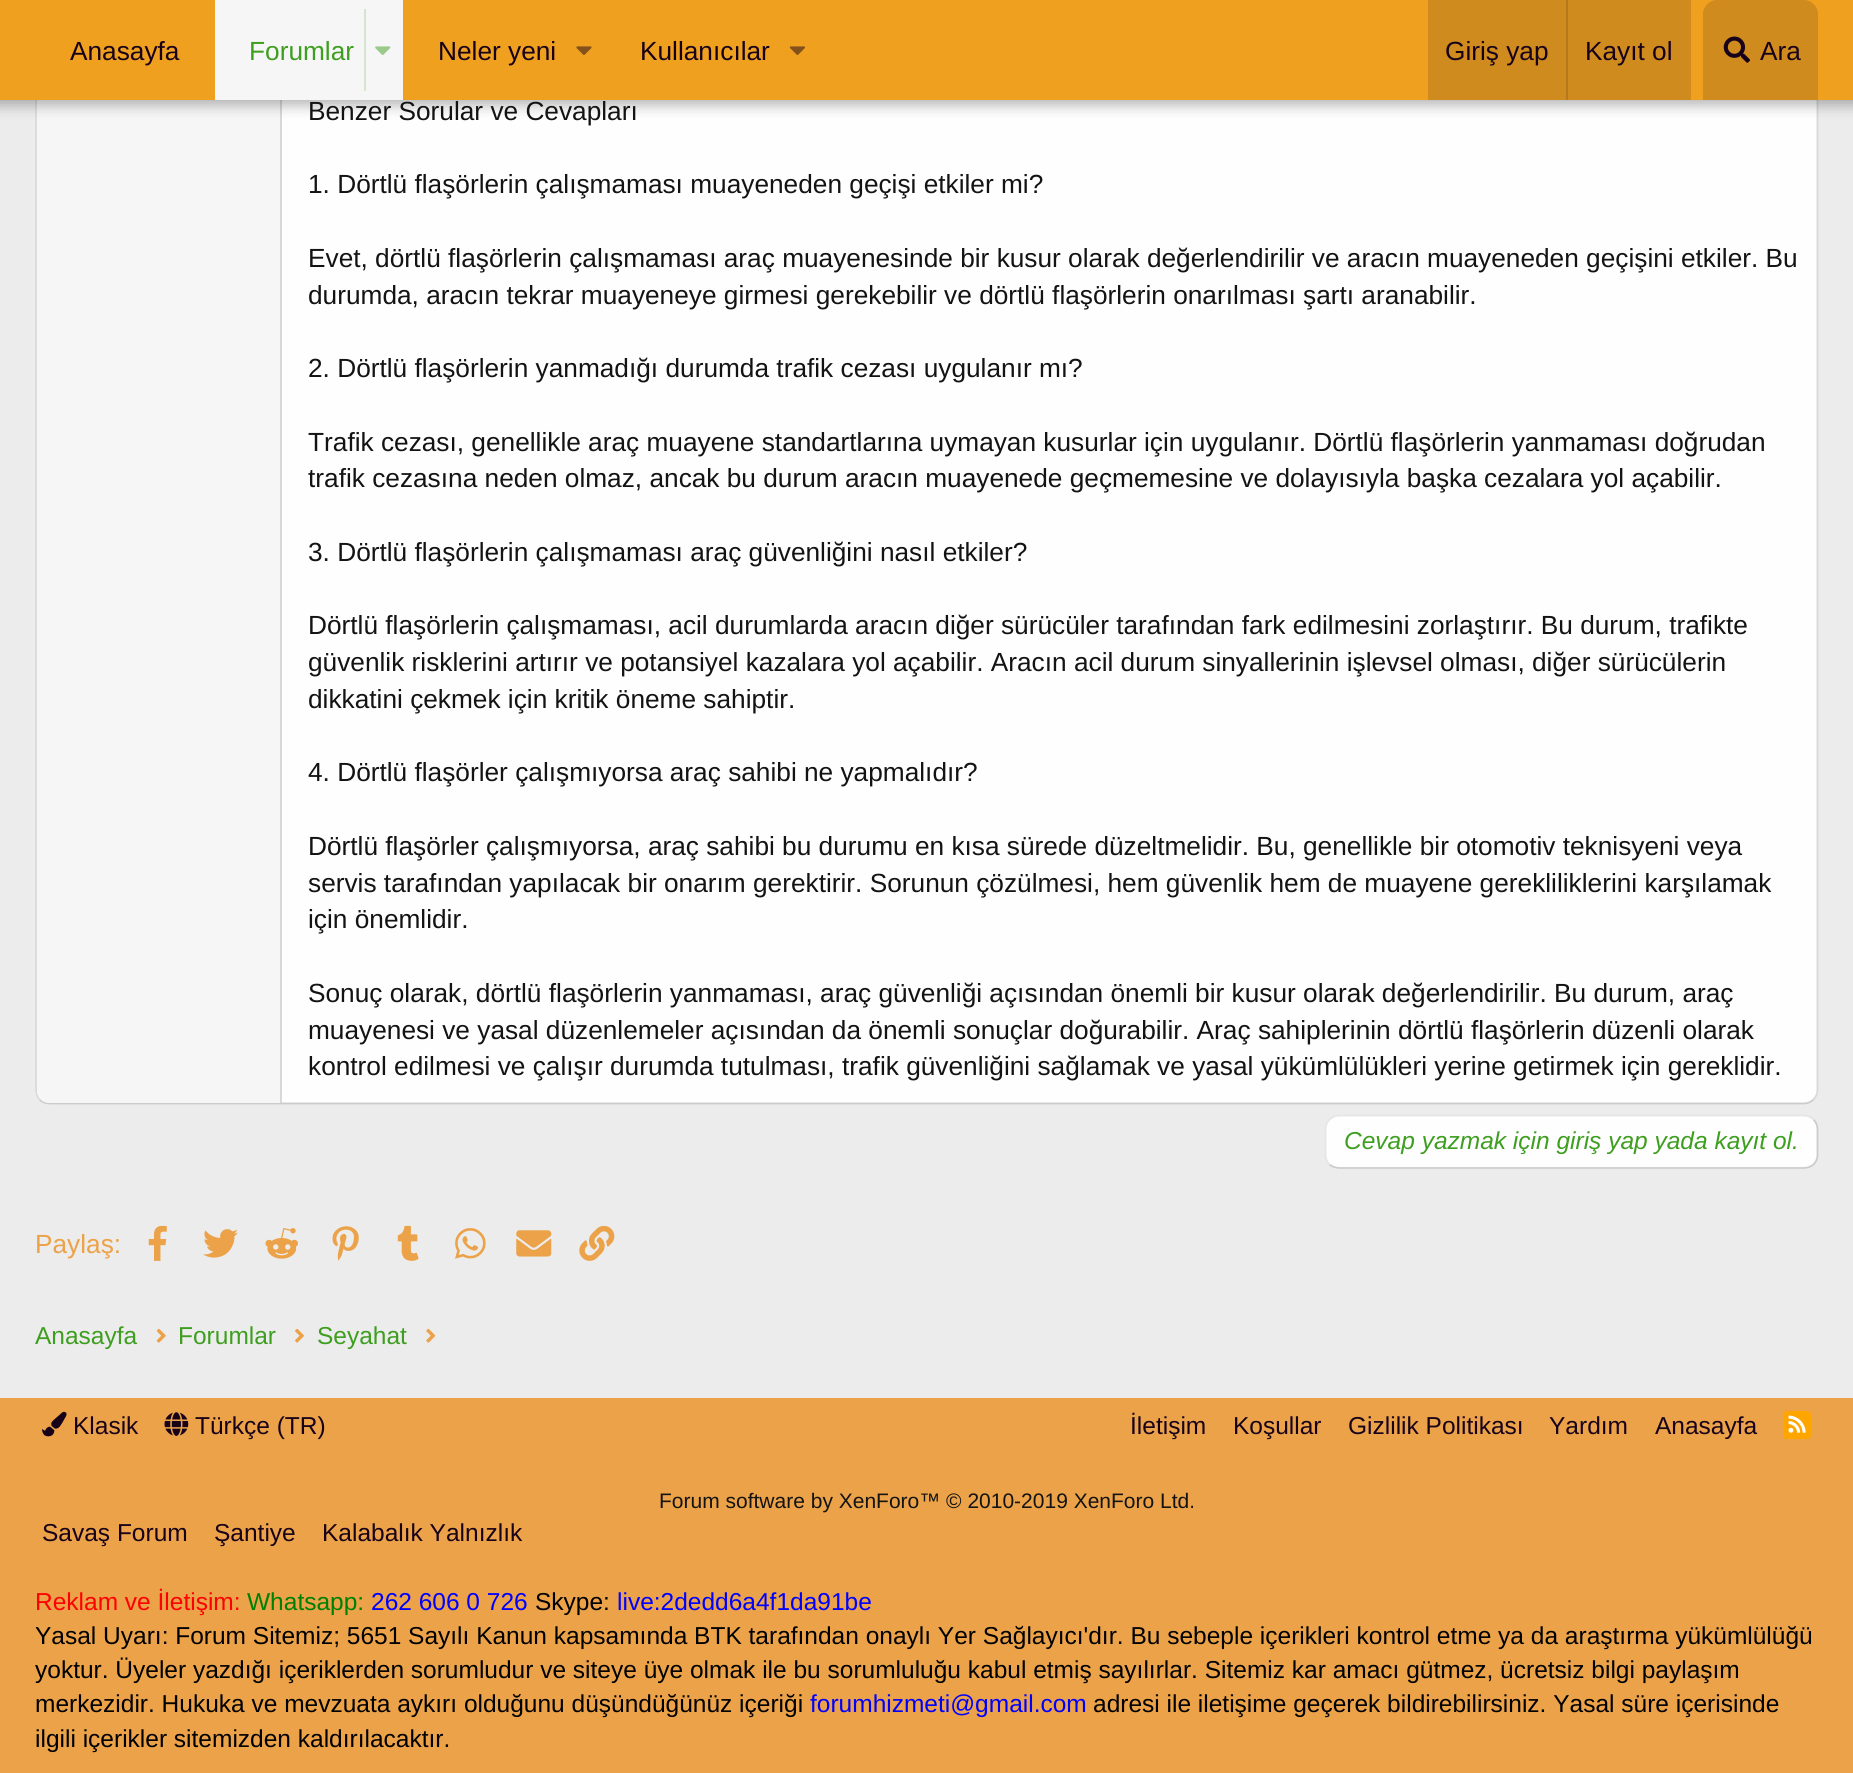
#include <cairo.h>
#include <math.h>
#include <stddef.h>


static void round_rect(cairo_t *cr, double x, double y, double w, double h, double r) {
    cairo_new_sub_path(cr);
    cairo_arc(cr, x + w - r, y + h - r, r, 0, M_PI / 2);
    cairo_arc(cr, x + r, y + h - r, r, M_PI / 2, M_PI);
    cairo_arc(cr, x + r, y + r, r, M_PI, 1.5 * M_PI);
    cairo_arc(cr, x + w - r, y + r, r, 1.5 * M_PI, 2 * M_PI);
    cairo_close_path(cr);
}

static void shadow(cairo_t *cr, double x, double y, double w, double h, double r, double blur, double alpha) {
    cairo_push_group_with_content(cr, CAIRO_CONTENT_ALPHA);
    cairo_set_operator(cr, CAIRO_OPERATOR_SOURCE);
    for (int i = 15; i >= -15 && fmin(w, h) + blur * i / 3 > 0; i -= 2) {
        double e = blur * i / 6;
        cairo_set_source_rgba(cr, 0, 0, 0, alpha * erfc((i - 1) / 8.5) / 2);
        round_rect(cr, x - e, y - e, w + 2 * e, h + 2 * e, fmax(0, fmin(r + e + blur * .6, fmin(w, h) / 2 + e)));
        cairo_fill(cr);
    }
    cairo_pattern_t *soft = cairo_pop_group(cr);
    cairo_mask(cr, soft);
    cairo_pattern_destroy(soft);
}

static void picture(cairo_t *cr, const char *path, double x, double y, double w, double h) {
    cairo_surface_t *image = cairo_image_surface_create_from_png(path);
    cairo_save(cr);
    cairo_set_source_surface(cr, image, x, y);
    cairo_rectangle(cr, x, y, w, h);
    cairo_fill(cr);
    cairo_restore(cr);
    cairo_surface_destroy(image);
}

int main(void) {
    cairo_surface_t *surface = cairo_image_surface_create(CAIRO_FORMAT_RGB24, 1853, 1773);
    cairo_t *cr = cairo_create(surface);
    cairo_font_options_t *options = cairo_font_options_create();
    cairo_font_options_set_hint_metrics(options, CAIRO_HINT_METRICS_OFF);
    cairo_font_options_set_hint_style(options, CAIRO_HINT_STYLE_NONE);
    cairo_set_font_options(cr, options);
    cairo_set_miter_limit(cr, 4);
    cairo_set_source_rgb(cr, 0.925, 0.925, 0.925);
    cairo_paint(cr);
    cairo_set_source_rgb(cr, 0.996, 0.996, 0.996);
    round_rect(cr, 35, -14, 1783, 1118, 14);
    cairo_fill(cr);
    cairo_new_path(cr);
    cairo_move_to(cr, 1813.5, -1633.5);
    cairo_curve_to(cr, 1816, -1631, 1817.5, -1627.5, 1817.5, -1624);
    cairo_line_to(cr, 1817.5, 1090);
    cairo_curve_to(cr, 1817.5, 1093.5, 1816, 1097, 1813.5, 1099.5);
    cairo_set_source_rgb(cr, 0.847, 0.847, 0.847);
    cairo_set_line_width(cr, 1.8);
    cairo_stroke(cr);
    cairo_new_path(cr);
    cairo_move_to(cr, 1813.5, 1099.5);
    cairo_curve_to(cr, 1811, 1102, 1807.5, 1103.5, 1804, 1103.5);
    cairo_line_to(cr, 49, 1103.5);
    cairo_curve_to(cr, 45.5, 1103.5, 42, 1102, 39.5, 1099.5);
    cairo_set_source_rgb(cr, 0.796, 0.796, 0.796);
    cairo_stroke(cr);
    cairo_new_path(cr);
    cairo_move_to(cr, 39.5, 1099.5);
    cairo_curve_to(cr, 37.5, 1097, 36, 1093.5, 36, 1090);
    cairo_line_to(cr, 36, -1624);
    cairo_curve_to(cr, 36, -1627.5, 37.5, -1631, 39.5, -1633.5);
    cairo_set_source_rgb(cr, 0.847, 0.847, 0.847);
    cairo_stroke(cr);
    cairo_set_source_rgb(cr, 0.961, 0.961, 0.961);
    cairo_new_path(cr);
    cairo_move_to(cr, 49, -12);
    cairo_line_to(cr, 282, -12);
    cairo_line_to(cr, 282, 1103);
    cairo_line_to(cr, 49, 1103);
    cairo_curve_to(cr, 42.5, 1103, 37, 1097.5, 37, 1091);
    cairo_line_to(cr, 37, 0);
    cairo_curve_to(cr, 37, -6.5, 42.5, -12, 49, -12);
    cairo_close_path(cr);
    cairo_fill(cr);
    cairo_set_source_rgb(cr, 0.847, 0.847, 0.847);
    cairo_rectangle(cr, 280, 100, 2, 1003);
    cairo_fill(cr);
    cairo_set_source_rgb(cr, 0, 0, 0);
    shadow(cr, -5, -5, 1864, 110, 0, 7, 0.3);
    cairo_set_source_rgb(cr, 0.941, 0.627, 0.122);
    cairo_rectangle(cr, 0, 0, 1853, 100);
    cairo_fill(cr);
    cairo_select_font_face(cr, "Liberation Sans", CAIRO_FONT_SLANT_NORMAL, CAIRO_FONT_WEIGHT_NORMAL);
    cairo_set_font_size(cr, 26.25);
    cairo_set_source_rgb(cr, 0.094, 0.008, 0.098);
    cairo_move_to(cr, 70, 60);
    cairo_show_text(cr, "Anasayfa");
    cairo_set_source_rgb(cr, 0.961, 0.961, 0.961);
    cairo_rectangle(cr, 215, 0, 188, 100);
    cairo_fill(cr);
    cairo_set_source_rgb(cr, 0.243, 0.62, 0.122);
    cairo_move_to(cr, 249, 60);
    cairo_show_text(cr, "Forumlar");
    cairo_set_source_rgb(cr, 0.835, 0.902, 0.816);
    cairo_rectangle(cr, 364, 9, 2, 82);
    cairo_fill(cr);
    picture(cr, "img1.png", 375, 46, 16, 9);
    cairo_set_source_rgb(cr, 0.094, 0.008, 0.098);
    cairo_move_to(cr, 438, 60);
    cairo_show_text(cr, "Neler yeni");
    picture(cr, "img2.png", 576, 46, 16, 9);
    cairo_move_to(cr, 640, 60);
    cairo_show_text(cr, "Kullanıcılar");
    picture(cr, "img3.png", 789, 46, 16, 9);
    cairo_set_source_rgb(cr, 0.812, 0.545, 0.114);
    cairo_rectangle(cr, 1428, 0, 263, 100);
    cairo_fill(cr);
    cairo_set_source_rgb(cr, 0.094, 0.008, 0.098);
    cairo_move_to(cr, 1445, 60);
    cairo_show_text(cr, "Giriş yap");
    cairo_set_source_rgb(cr, 0.702, 0.475, 0.11);
    cairo_rectangle(cr, 1566, 0, 2, 100);
    cairo_fill(cr);
    cairo_set_source_rgb(cr, 0.094, 0.008, 0.098);
    cairo_move_to(cr, 1585, 60);
    cairo_show_text(cr, "Kayıt ol");
    cairo_set_source_rgb(cr, 0.812, 0.545, 0.114);
    cairo_new_path(cr);
    cairo_move_to(cr, 1717, 0);
    cairo_line_to(cr, 1804, 0);
    cairo_curve_to(cr, 1811.5, 0, 1818, 6.5, 1818, 14);
    cairo_line_to(cr, 1818, 100);
    cairo_line_to(cr, 1703, 100);
    cairo_line_to(cr, 1703, 14);
    cairo_curve_to(cr, 1703, 6.5, 1709.5, 0, 1717, 0);
    cairo_close_path(cr);
    cairo_fill(cr);
    picture(cr, "img4.png", 1723, 36, 27, 27);
    cairo_set_source_rgb(cr, 0.094, 0.008, 0.098);
    cairo_move_to(cr, 1760, 60);
    cairo_show_text(cr, "Ara");
    cairo_set_source_rgb(cr, 0.078, 0.078, 0.078);
    cairo_move_to(cr, 308, 120);
    cairo_show_text(cr, "Benzer Sorular ve Cevapları");
    cairo_move_to(cr, 308, 193);
    cairo_show_text(cr, "1. Dörtlü flaşörlerin çalışmaması muayeneden geçişi etkiler mi?");
    cairo_move_to(cr, 308, 267);
    cairo_show_text(cr, "Evet, dörtlü flaşörlerin çalışmaması araç muayenesinde bir kusur olarak değerlendirilir ve aracın muayeneden geçişini etkiler. Bu");
    cairo_move_to(cr, 308, 304);
    cairo_show_text(cr, "durumda, aracın tekrar muayeneye girmesi gerekebilir ve dörtlü flaşörlerin onarılması şartı aranabilir.");
    cairo_move_to(cr, 308, 377);
    cairo_show_text(cr, "2. Dörtlü flaşörlerin yanmadığı durumda trafik cezası uygulanır mı?");
    cairo_move_to(cr, 308, 451);
    cairo_show_text(cr, "Trafik cezası, genellikle araç muayene standartlarına uymayan kusurlar için uygulanır. Dörtlü flaşörlerin yanmaması doğrudan");
    cairo_move_to(cr, 308, 487);
    cairo_show_text(cr, "trafik cezasına neden olmaz, ancak bu durum aracın muayenede geçmemesine ve dolayısıyla başka cezalara yol açabilir.");
    cairo_move_to(cr, 308, 561);
    cairo_show_text(cr, "3. Dörtlü flaşörlerin çalışmaması araç güvenliğini nasıl etkiler?");
    cairo_move_to(cr, 308, 634);
    cairo_show_text(cr, "Dörtlü flaşörlerin çalışmaması, acil durumlarda aracın diğer sürücüler tarafından fark edilmesini zorlaştırır. Bu durum, trafikte");
    cairo_move_to(cr, 308, 671);
    cairo_show_text(cr, "güvenlik risklerini artırır ve potansiyel kazalara yol açabilir. Aracın acil durum sinyallerinin işlevsel olması, diğer sürücülerin");
    cairo_move_to(cr, 308, 708);
    cairo_show_text(cr, "dikkatini çekmek için kritik öneme sahiptir.");
    cairo_move_to(cr, 308, 781);
    cairo_show_text(cr, "4. Dörtlü flaşörler çalışmıyorsa araç sahibi ne yapmalıdır?");
    cairo_move_to(cr, 308, 855);
    cairo_show_text(cr, "Dörtlü flaşörler çalışmıyorsa, araç sahibi bu durumu en kısa sürede düzeltmelidir. Bu, genellikle bir otomotiv teknisyeni veya");
    cairo_move_to(cr, 308, 892);
    cairo_show_text(cr, "servis tarafından yapılacak bir onarım gerektirir. Sorunun çözülmesi, hem güvenlik hem de muayene gerekliliklerini karşılamak");
    cairo_move_to(cr, 308, 928);
    cairo_show_text(cr, "için önemlidir.");
    cairo_move_to(cr, 308, 1002);
    cairo_show_text(cr, "Sonuç olarak, dörtlü flaşörlerin yanmaması, araç güvenliği açısından önemli bir kusur olarak değerlendirilir. Bu durum, araç");
    cairo_move_to(cr, 308, 1039);
    cairo_show_text(cr, "muayenesi ve yasal düzenlemeler açısından da önemli sonuçlar doğurabilir. Araç sahiplerinin dörtlü flaşörlerin düzenli olarak");
    cairo_move_to(cr, 308, 1075);
    cairo_show_text(cr, "kontrol edilmesi ve çalışır durumda tutulması, trafik güvenliğini sağlamak ve yasal yükümlülükleri yerine getirmek için gereklidir.");
    cairo_set_source_rgb(cr, 0.996, 0.996, 0.996);
    round_rect(cr, 1325, 1115, 493, 54, 14);
    cairo_fill(cr);
    cairo_new_path(cr);
    cairo_move_to(cr, 1813.5, 1119.5);
    cairo_curve_to(cr, 1816, 1122, 1817.5, 1125.5, 1817.5, 1129);
    cairo_line_to(cr, 1817.5, 1155);
    cairo_curve_to(cr, 1817.5, 1158.5, 1816, 1162, 1813.5, 1164.5);
    cairo_curve_to(cr, 1811, 1166.5, 1807.5, 1168, 1804, 1168);
    cairo_line_to(cr, 1339, 1168);
    cairo_curve_to(cr, 1335.5, 1168, 1332, 1166.5, 1329.5, 1164.5);
    cairo_set_source_rgb(cr, 0.796, 0.796, 0.796);
    cairo_stroke(cr);
    cairo_new_path(cr);
    cairo_move_to(cr, 1329.5, 1164.5);
    cairo_curve_to(cr, 1327, 1162, 1325.5, 1158.5, 1325.5, 1155);
    cairo_line_to(cr, 1325.5, 1129);
    cairo_curve_to(cr, 1325.5, 1125.5, 1327, 1122, 1329.5, 1119.5);
    cairo_curve_to(cr, 1332, 1117, 1335.5, 1115.5, 1339, 1115.5);
    cairo_line_to(cr, 1804, 1115.5);
    cairo_curve_to(cr, 1807.5, 1115.5, 1811, 1117, 1813.5, 1119.5);
    cairo_set_source_rgb(cr, 0.898, 0.898, 0.898);
    cairo_stroke(cr);
    cairo_select_font_face(cr, "Liberation Sans", CAIRO_FONT_SLANT_ITALIC, CAIRO_FONT_WEIGHT_NORMAL);
    cairo_set_font_size(cr, 24.5);
    cairo_set_source_rgb(cr, 0.243, 0.62, 0.122);
    cairo_move_to(cr, 1344, 1149);
    cairo_show_text(cr, "Cevap yazmak için giriş yap yada kayıt ol.");
    cairo_select_font_face(cr, "Liberation Sans", CAIRO_FONT_SLANT_NORMAL, CAIRO_FONT_WEIGHT_NORMAL);
    cairo_set_font_size(cr, 26.25);
    cairo_set_source_rgb(cr, 0.922, 0.635, 0.282);
    cairo_move_to(cr, 35, 1253);
    cairo_show_text(cr, "Paylaş:");
    picture(cr, "img5.png", 148, 1225, 19, 36);
    picture(cr, "img6.png", 203, 1229, 35, 29);
    picture(cr, "img7.png", 265, 1228, 33, 31);
    picture(cr, "img8.png", 332, 1226, 27, 35);
    picture(cr, "img9.png", 397, 1225, 22, 36);
    picture(cr, "img10.png", 455, 1228, 31, 31);
    picture(cr, "img11.png", 516, 1230, 36, 27);
    picture(cr, "img12.png", 579, 1225, 36, 36);
    cairo_set_font_size(cr, 24.5);
    cairo_set_source_rgb(cr, 0.243, 0.62, 0.122);
    cairo_move_to(cr, 35, 1344);
    cairo_show_text(cr, "Anasayfa");
    picture(cr, "img13.png", 156, 1328, 10, 15);
    cairo_move_to(cr, 178, 1344);
    cairo_show_text(cr, "Forumlar");
    picture(cr, "img14.png", 295, 1328, 9, 15);
    cairo_move_to(cr, 317, 1344);
    cairo_show_text(cr, "Seyahat");
    picture(cr, "img15.png", 426, 1328, 10, 15);
    cairo_set_source_rgb(cr, 0.922, 0.635, 0.282);
    cairo_rectangle(cr, 0, 1398, 1853, 375);
    cairo_fill(cr);
    picture(cr, "img16.png", 42, 1411, 25, 26);
    cairo_set_source_rgb(cr, 0.094, 0.008, 0.098);
    cairo_move_to(cr, 73, 1434);
    cairo_show_text(cr, "Klasik");
    picture(cr, "img17.png", 164, 1412, 25, 24);
    cairo_move_to(cr, 195, 1434);
    cairo_show_text(cr, "Türkçe (TR)");
    cairo_move_to(cr, 1130, 1434);
    cairo_show_text(cr, "İletişim");
    cairo_move_to(cr, 1233, 1434);
    cairo_show_text(cr, "Koşullar");
    cairo_move_to(cr, 1348, 1434);
    cairo_show_text(cr, "Gizlilik Politikası");
    cairo_move_to(cr, 1549, 1434);
    cairo_show_text(cr, "Yardım");
    cairo_move_to(cr, 1655, 1434);
    cairo_show_text(cr, "Anasayfa");
    cairo_set_source_rgb(cr, 1, 0.647, 0);
    round_rect(cr, 1783, 1411, 28, 28, 4);
    cairo_fill(cr);
    picture(cr, "img18.png", 1788, 1415, 18, 18);
    cairo_set_font_size(cr, 21);
    cairo_set_source_rgb(cr, 0.078, 0.078, 0.078);
    cairo_move_to(cr, 659, 1508);
    cairo_show_text(cr, "Forum software by XenForo™ © 2010-2019 XenForo Ltd.");
    cairo_set_font_size(cr, 24.5);
    cairo_set_source_rgb(cr, 0.094, 0.008, 0.098);
    cairo_move_to(cr, 42, 1541);
    cairo_show_text(cr, "Savaş Forum");
    cairo_move_to(cr, 214, 1541);
    cairo_show_text(cr, "Şantiye");
    cairo_move_to(cr, 322, 1541);
    cairo_show_text(cr, "Kalabalık Yalnızlık");
    cairo_set_source_rgb(cr, 1, 0, 0);
    cairo_move_to(cr, 35, 1610);
    cairo_show_text(cr, "Reklam ve İletişim:");
    cairo_set_source_rgb(cr, 0, 0.502, 0);
    cairo_move_to(cr, 247, 1610);
    cairo_show_text(cr, "Whatsapp:");
    cairo_set_source_rgb(cr, 0, 0, 1);
    cairo_move_to(cr, 371, 1610);
    cairo_show_text(cr, "262 606 0 726");
    cairo_set_source_rgb(cr, 0, 0, 0);
    cairo_move_to(cr, 535, 1610);
    cairo_show_text(cr, "Skype:");
    cairo_set_source_rgb(cr, 0, 0, 1);
    cairo_move_to(cr, 617, 1610);
    cairo_show_text(cr, "live:2dedd6a4f1da91be");
    cairo_set_source_rgb(cr, 0, 0, 0);
    cairo_move_to(cr, 35, 1644);
    cairo_show_text(cr, "Yasal Uyarı: Forum Sitemiz; 5651 Sayılı Kanun kapsamında BTK tarafından onaylı Yer Sağlayıcı'dır. Bu sebeple içerikleri kontrol etme ya da araştırma yükümlülüğü");
    cairo_move_to(cr, 35, 1678);
    cairo_show_text(cr, "yoktur. Üyeler yazdığı içeriklerden sorumludur ve siteye üye olmak ile bu sorumluluğu kabul etmiş sayılırlar. Sitemiz kar amacı gütmez, ücretsiz bilgi paylaşım");
    cairo_move_to(cr, 35, 1712);
    cairo_show_text(cr, "merkezidir. Hukuka ve mevzuata aykırı olduğunu düşündüğünüz içeriği");
    cairo_set_source_rgb(cr, 0, 0, 1);
    cairo_move_to(cr, 810, 1712);
    cairo_show_text(cr, "forumhizmeti@gmail.com");
    cairo_set_source_rgb(cr, 0, 0, 0);
    cairo_move_to(cr, 1093, 1712);
    cairo_show_text(cr, "adresi ile iletişime geçerek bildirebilirsiniz. Yasal süre içerisinde");
    cairo_move_to(cr, 35, 1747);
    cairo_show_text(cr, "ilgili içerikler sitemizden kaldırılacaktır.");
    cairo_surface_write_to_png(surface, "page.png");
    cairo_font_options_destroy(options);
    cairo_destroy(cr);
    cairo_surface_destroy(surface);
    return 0;
}
